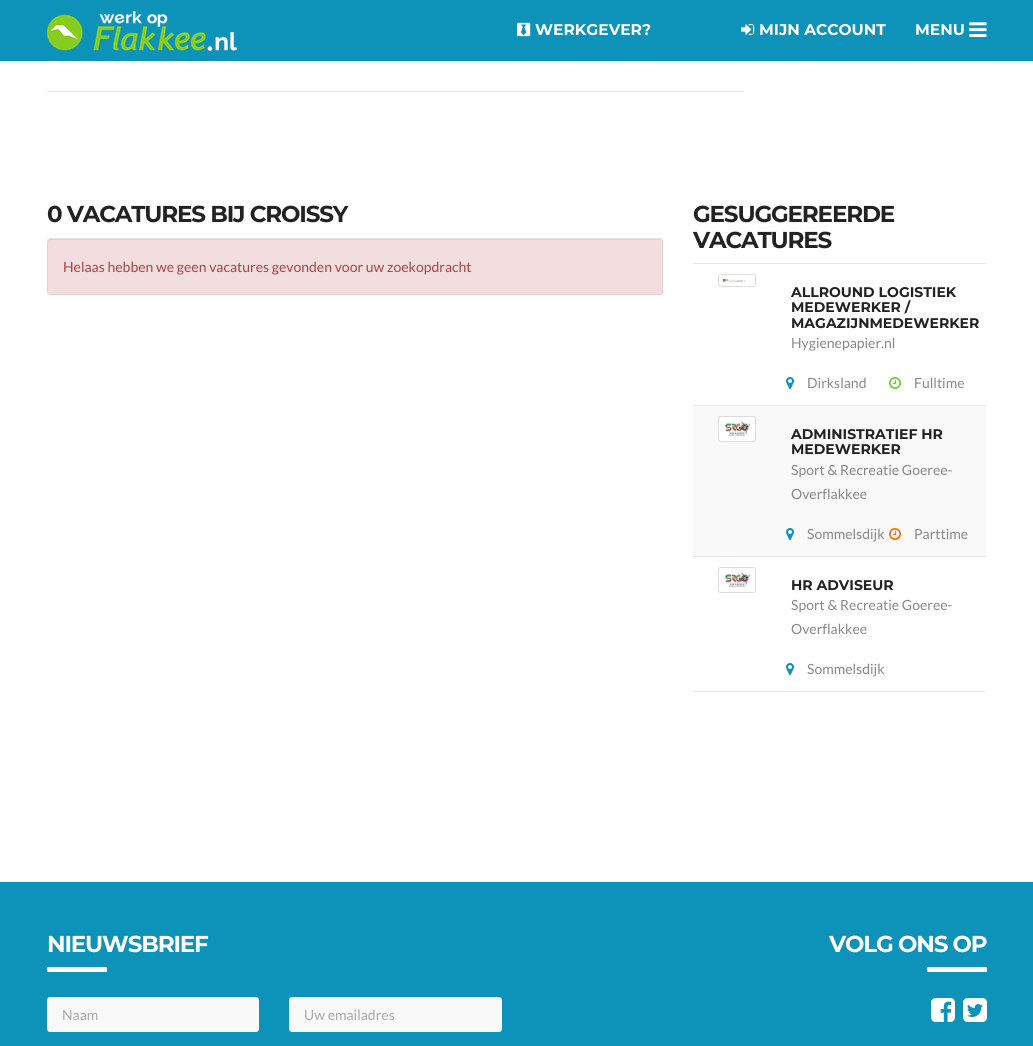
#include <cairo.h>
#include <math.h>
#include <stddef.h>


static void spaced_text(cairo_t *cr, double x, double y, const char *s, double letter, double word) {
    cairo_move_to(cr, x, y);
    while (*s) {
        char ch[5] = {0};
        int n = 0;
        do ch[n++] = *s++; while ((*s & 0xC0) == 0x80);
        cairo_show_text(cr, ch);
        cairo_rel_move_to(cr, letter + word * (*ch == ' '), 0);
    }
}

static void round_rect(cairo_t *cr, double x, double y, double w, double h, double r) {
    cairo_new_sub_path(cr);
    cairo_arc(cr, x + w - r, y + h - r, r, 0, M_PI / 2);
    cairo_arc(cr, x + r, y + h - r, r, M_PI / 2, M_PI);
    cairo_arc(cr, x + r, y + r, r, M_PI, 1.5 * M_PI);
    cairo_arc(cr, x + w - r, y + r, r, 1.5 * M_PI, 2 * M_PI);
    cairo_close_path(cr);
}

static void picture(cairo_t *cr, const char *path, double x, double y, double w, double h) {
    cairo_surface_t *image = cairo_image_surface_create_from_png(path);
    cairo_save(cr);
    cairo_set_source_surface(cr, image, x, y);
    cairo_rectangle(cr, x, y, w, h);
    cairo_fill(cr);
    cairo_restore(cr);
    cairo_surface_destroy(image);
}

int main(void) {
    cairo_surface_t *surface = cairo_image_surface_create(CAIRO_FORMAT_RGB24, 1033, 1046);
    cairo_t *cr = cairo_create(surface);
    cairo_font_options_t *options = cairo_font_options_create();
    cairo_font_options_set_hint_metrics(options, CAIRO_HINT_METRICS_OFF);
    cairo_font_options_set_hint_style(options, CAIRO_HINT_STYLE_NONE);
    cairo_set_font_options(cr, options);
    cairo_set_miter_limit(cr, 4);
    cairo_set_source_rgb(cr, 1, 1, 1);
    cairo_paint(cr);
    cairo_set_source_rgb(cr, 0.051, 0.573, 0.729);
    cairo_rectangle(cr, 0, 0, 1033, 61);
    cairo_fill(cr);
    picture(cr, "img1.png", 47, 11, 190, 40);
    picture(cr, "img2.png", 517, 22, 14, 15);
    cairo_select_font_face(cr, "Montserrat Thin", CAIRO_FONT_SLANT_NORMAL, CAIRO_FONT_WEIGHT_NORMAL);
    cairo_set_font_size(cr, 15.5);
    cairo_set_source_rgb(cr, 1, 1, 1);
    cairo_move_to(cr, 535, 35);
    cairo_show_text(cr, "WERKGEVER?");
    picture(cr, "img3.png", 741, 24, 14, 11);
    cairo_move_to(cr, 759, 35);
    cairo_show_text(cr, "MIJN ACCOUNT");
    cairo_move_to(cr, 915, 35);
    cairo_show_text(cr, "MENU");
    picture(cr, "img4.png", 969, 22, 18, 15);
    cairo_set_source_rgb(cr, 0.906, 0.906, 0.906);
    cairo_rectangle(cr, 47, 91, 697, 1);
    cairo_fill(cr);
    cairo_set_font_size(cr, 23);
    cairo_set_source_rgb(cr, 0.133, 0.133, 0.133);
    spaced_text(cr, 47, 222, "0 VACATURES BIJ CROISSY", -1.15, 0);
    cairo_set_source_rgb(cr, 0.906, 0.906, 0.906);
    cairo_rectangle(cr, 47, 238, 616, 1);
    cairo_fill(cr);
    cairo_set_source_rgb(cr, 0.949, 0.871, 0.871);
    round_rect(cr, 47.5, 239.5, 615, 55, 2.5);
    cairo_fill_preserve(cr);
    cairo_set_source_rgb(cr, 0.922, 0.8, 0.82);
    cairo_set_line_width(cr, 1);
    cairo_stroke(cr);
    cairo_select_font_face(cr, "Lato", CAIRO_FONT_SLANT_NORMAL, CAIRO_FONT_WEIGHT_NORMAL);
    cairo_set_font_size(cr, 14);
    cairo_set_source_rgb(cr, 0.663, 0.267, 0.259);
    cairo_move_to(cr, 63, 272);
    cairo_show_text(cr, "Helaas hebben we geen vacatures gevonden voor uw zoekopdracht");
    cairo_select_font_face(cr, "Montserrat Thin", CAIRO_FONT_SLANT_NORMAL, CAIRO_FONT_WEIGHT_NORMAL);
    cairo_set_font_size(cr, 23);
    cairo_set_source_rgb(cr, 0.133, 0.133, 0.133);
    spaced_text(cr, 693, 222, "GESUGGEREERDE", -1.15, 0);
    spaced_text(cr, 693, 248, "VACATURES", -1.15, 0);
    cairo_set_source_rgb(cr, 0.906, 0.906, 0.906);
    cairo_rectangle(cr, 693, 263, 293, 1);
    cairo_fill(cr);
    cairo_rectangle(cr, 693, 405, 293, 1);
    cairo_fill(cr);
    round_rect(cr, 718.5, 274.5, 37, 12, 2.5);
    cairo_set_source_rgb(cr, 0.867, 0.867, 0.867);
    cairo_stroke(cr);
    picture(cr, "img5.png", 723, 279, 23, 3);
    cairo_set_font_size(cr, 14);
    cairo_set_source_rgb(cr, 0.133, 0.133, 0.133);
    cairo_move_to(cr, 791, 297);
    cairo_show_text(cr, "ALLROUND LOGISTIEK");
    cairo_move_to(cr, 791, 312);
    cairo_show_text(cr, "MEDEWERKER /");
    cairo_move_to(cr, 791, 328);
    cairo_show_text(cr, "MAGAZIJNMEDEWERKER");
    cairo_select_font_face(cr, "Lato", CAIRO_FONT_SLANT_NORMAL, CAIRO_FONT_WEIGHT_NORMAL);
    cairo_set_source_rgb(cr, 0.533, 0.533, 0.533);
    cairo_move_to(cr, 791, 348);
    cairo_show_text(cr, "Hygienepapier.nl");
    picture(cr, "img6.png", 786, 377, 8, 12);
    cairo_move_to(cr, 807, 388);
    cairo_show_text(cr, "Dirksland");
    picture(cr, "img7.png", 889, 377, 12, 12);
    cairo_move_to(cr, 914, 388);
    cairo_show_text(cr, "Fulltime");
    cairo_set_source_rgb(cr, 0.973, 0.973, 0.973);
    cairo_rectangle(cr, 693, 406, 293, 150);
    cairo_fill(cr);
    cairo_set_source_rgb(cr, 0.906, 0.906, 0.906);
    cairo_rectangle(cr, 693, 556, 293, 1);
    cairo_fill(cr);
    cairo_set_source_rgb(cr, 1, 1, 1);
    round_rect(cr, 718.5, 416.5, 37, 25, 2.5);
    cairo_fill_preserve(cr);
    cairo_set_source_rgb(cr, 0.867, 0.867, 0.867);
    cairo_stroke(cr);
    picture(cr, "img8.png", 724, 421, 27, 16);
    cairo_select_font_face(cr, "Montserrat Thin", CAIRO_FONT_SLANT_NORMAL, CAIRO_FONT_WEIGHT_NORMAL);
    cairo_set_source_rgb(cr, 0.133, 0.133, 0.133);
    cairo_move_to(cr, 791, 439);
    cairo_show_text(cr, "ADMINISTRATIEF HR");
    cairo_move_to(cr, 791, 454);
    cairo_show_text(cr, "MEDEWERKER");
    cairo_select_font_face(cr, "Lato", CAIRO_FONT_SLANT_NORMAL, CAIRO_FONT_WEIGHT_NORMAL);
    cairo_set_source_rgb(cr, 0.533, 0.533, 0.533);
    cairo_move_to(cr, 791, 475);
    cairo_show_text(cr, "Sport & Recreatie Goeree-");
    cairo_move_to(cr, 791, 499);
    cairo_show_text(cr, "Overflakkee");
    picture(cr, "img9.png", 786, 528, 8, 12);
    cairo_move_to(cr, 807, 539);
    cairo_show_text(cr, "Sommelsdijk");
    picture(cr, "img10.png", 889, 528, 12, 12);
    cairo_move_to(cr, 914, 539);
    cairo_show_text(cr, "Parttime");
    cairo_set_source_rgb(cr, 0.906, 0.906, 0.906);
    cairo_rectangle(cr, 693, 691, 293, 1);
    cairo_fill(cr);
    round_rect(cr, 718.5, 567.5, 37, 25, 2.5);
    cairo_set_source_rgb(cr, 0.867, 0.867, 0.867);
    cairo_stroke(cr);
    picture(cr, "img8.png", 724, 572, 27, 16);
    cairo_select_font_face(cr, "Montserrat Thin", CAIRO_FONT_SLANT_NORMAL, CAIRO_FONT_WEIGHT_NORMAL);
    cairo_set_source_rgb(cr, 0.133, 0.133, 0.133);
    cairo_move_to(cr, 791, 590);
    cairo_show_text(cr, "HR ADVISEUR");
    cairo_select_font_face(cr, "Lato", CAIRO_FONT_SLANT_NORMAL, CAIRO_FONT_WEIGHT_NORMAL);
    cairo_set_source_rgb(cr, 0.533, 0.533, 0.533);
    cairo_move_to(cr, 791, 610);
    cairo_show_text(cr, "Sport & Recreatie Goeree-");
    cairo_move_to(cr, 791, 634);
    cairo_show_text(cr, "Overflakkee");
    picture(cr, "img6.png", 786, 663, 8, 12);
    cairo_move_to(cr, 807, 674);
    cairo_show_text(cr, "Sommelsdijk");
    cairo_set_source_rgb(cr, 0.051, 0.573, 0.729);
    cairo_rectangle(cr, 0, 882, 1033, 164);
    cairo_fill(cr);
    cairo_select_font_face(cr, "Montserrat Thin", CAIRO_FONT_SLANT_NORMAL, CAIRO_FONT_WEIGHT_NORMAL);
    cairo_set_font_size(cr, 23);
    cairo_set_source_rgb(cr, 1, 1, 1);
    spaced_text(cr, 47, 952, "NIEUWSBRIEF", -1.15, 0);
    cairo_rectangle(cr, 47, 967, 60, 5);
    cairo_fill(cr);
    cairo_set_source_rgb(cr, 0.973, 0.973, 0.973);
    round_rect(cr, 47, 997, 212, 35, 3);
    cairo_fill(cr);
    cairo_select_font_face(cr, "Lato", CAIRO_FONT_SLANT_NORMAL, CAIRO_FONT_WEIGHT_NORMAL);
    cairo_set_font_size(cr, 14);
    cairo_set_source_rgb(cr, 0.667, 0.667, 0.667);
    cairo_move_to(cr, 62, 1020);
    cairo_show_text(cr, "Naam");
    cairo_set_source_rgb(cr, 0.973, 0.973, 0.973);
    round_rect(cr, 289, 997, 213, 35, 3);
    cairo_fill(cr);
    cairo_set_source_rgb(cr, 0.667, 0.667, 0.667);
    cairo_move_to(cr, 304, 1020);
    cairo_show_text(cr, "Uw emailadres");
    cairo_select_font_face(cr, "Montserrat Thin", CAIRO_FONT_SLANT_NORMAL, CAIRO_FONT_WEIGHT_NORMAL);
    cairo_set_font_size(cr, 23);
    cairo_set_source_rgb(cr, 1, 1, 1);
    spaced_text(cr, 829, 952, "VOLG ONS OP", -1.15, 0);
    cairo_rectangle(cr, 927, 967, 60, 5);
    cairo_fill(cr);
    picture(cr, "img11.png", 931, 998, 24, 24);
    picture(cr, "img12.png", 963, 998, 24, 24);
    cairo_surface_write_to_png(surface, "page.png");
    cairo_font_options_destroy(options);
    cairo_destroy(cr);
    cairo_surface_destroy(surface);
    return 0;
}
